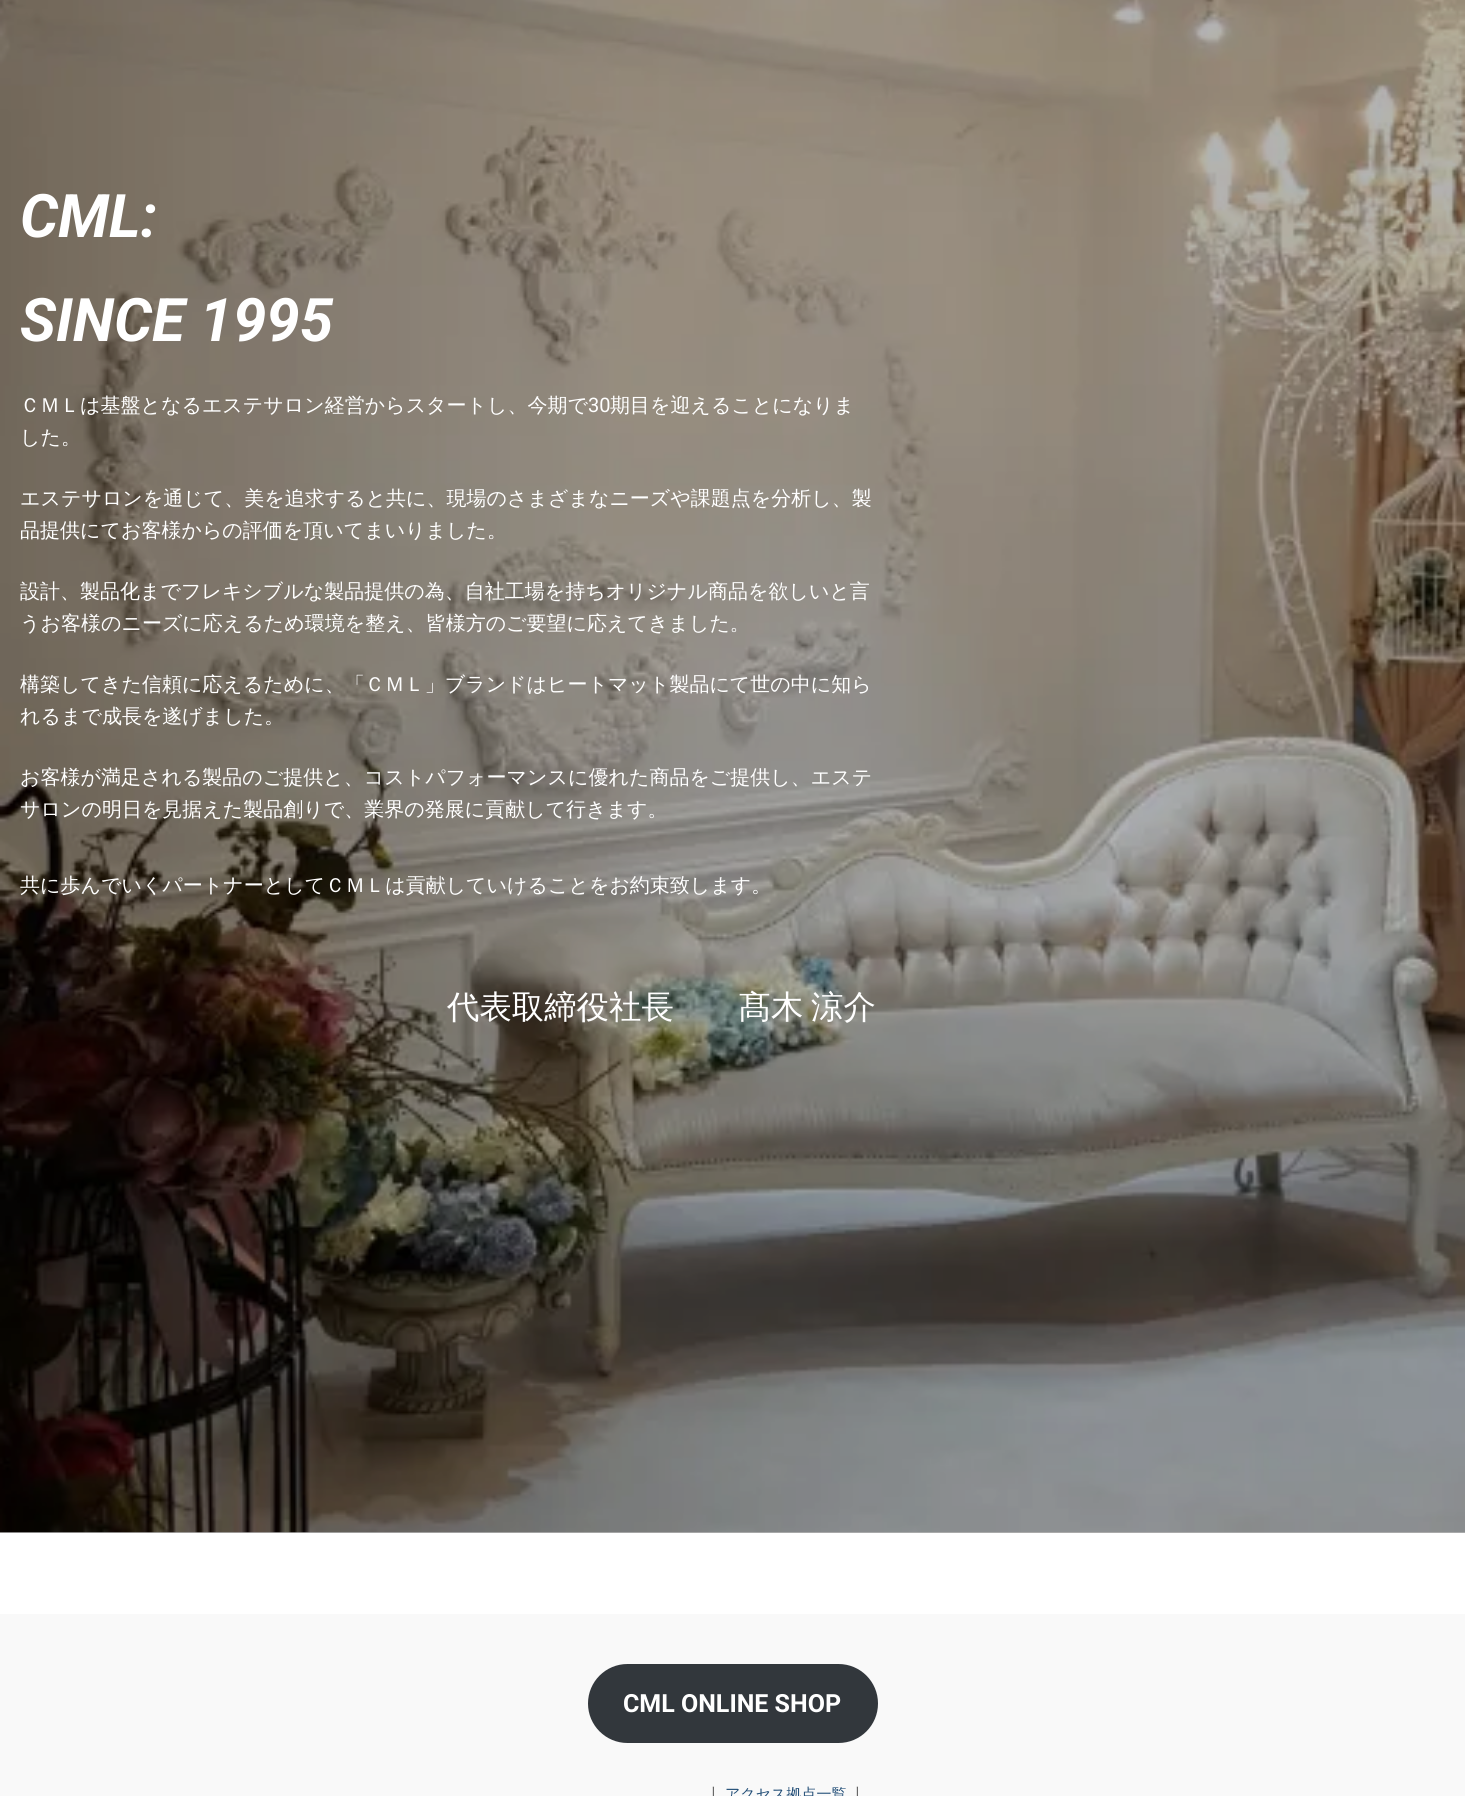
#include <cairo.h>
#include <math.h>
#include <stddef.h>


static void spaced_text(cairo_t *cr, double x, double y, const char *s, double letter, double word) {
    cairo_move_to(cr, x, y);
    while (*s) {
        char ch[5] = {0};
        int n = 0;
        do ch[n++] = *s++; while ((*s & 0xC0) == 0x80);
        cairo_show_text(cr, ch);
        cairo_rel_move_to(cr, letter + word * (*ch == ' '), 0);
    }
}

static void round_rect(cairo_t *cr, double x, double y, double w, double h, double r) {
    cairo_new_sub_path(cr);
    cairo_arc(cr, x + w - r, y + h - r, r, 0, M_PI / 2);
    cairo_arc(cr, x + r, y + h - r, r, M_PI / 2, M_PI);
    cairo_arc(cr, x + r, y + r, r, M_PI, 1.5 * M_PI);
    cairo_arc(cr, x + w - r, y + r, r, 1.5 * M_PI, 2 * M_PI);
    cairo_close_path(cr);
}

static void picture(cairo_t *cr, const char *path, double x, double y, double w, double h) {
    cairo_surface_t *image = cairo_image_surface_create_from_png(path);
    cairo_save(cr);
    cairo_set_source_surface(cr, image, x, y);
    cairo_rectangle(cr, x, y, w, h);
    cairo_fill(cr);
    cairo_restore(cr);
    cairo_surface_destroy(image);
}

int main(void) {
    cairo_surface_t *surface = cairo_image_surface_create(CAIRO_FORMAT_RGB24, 1465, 1796);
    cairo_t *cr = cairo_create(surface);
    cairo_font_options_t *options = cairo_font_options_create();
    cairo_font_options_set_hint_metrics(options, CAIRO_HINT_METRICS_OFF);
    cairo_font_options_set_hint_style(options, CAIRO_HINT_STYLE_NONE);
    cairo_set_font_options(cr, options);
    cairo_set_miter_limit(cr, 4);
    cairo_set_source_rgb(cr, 1, 1, 1);
    cairo_paint(cr);
    cairo_set_source_rgb(cr, 0.702, 0.702, 0.702);
    cairo_rectangle(cr, 0, 1532, 1465, 1);
    cairo_fill(cr);
    picture(cr, "img1.png", 0, 0, 1465, 1533);
    cairo_select_font_face(cr, "Roboto", CAIRO_FONT_SLANT_ITALIC, CAIRO_FONT_WEIGHT_BOLD);
    cairo_set_font_size(cr, 60);
    cairo_set_source_rgb(cr, 1, 1, 1);
    cairo_move_to(cr, 20, 237);
    cairo_show_text(cr, "CML:");
    cairo_move_to(cr, 20, 341);
    cairo_show_text(cr, "SINCE 1995");
    cairo_select_font_face(cr, "WenQuanYi Zen Hei Medium", CAIRO_FONT_SLANT_NORMAL, CAIRO_FONT_WEIGHT_NORMAL);
    cairo_set_font_size(cr, 20);
    cairo_move_to(cr, 20, 412);
    cairo_show_text(cr, "ＣＭＬは基盤となるエステサロン経営からスタートし、今期で");
    cairo_select_font_face(cr, "Roboto", CAIRO_FONT_SLANT_NORMAL, CAIRO_FONT_WEIGHT_NORMAL);
    cairo_move_to(cr, 588, 412);
    cairo_show_text(cr, "30");
    cairo_select_font_face(cr, "WenQuanYi Zen Hei Medium", CAIRO_FONT_SLANT_NORMAL, CAIRO_FONT_WEIGHT_NORMAL);
    cairo_move_to(cr, 610, 412);
    cairo_show_text(cr, "期目を迎えることになりま");
    cairo_move_to(cr, 20, 444);
    cairo_show_text(cr, "した。");
    cairo_move_to(cr, 20, 505);
    cairo_show_text(cr, "エステサロンを通じて、美を追求すると共に、現場のさまざまなニーズや課題点を分析し、製");
    cairo_move_to(cr, 20, 537);
    cairo_show_text(cr, "品提供にてお客様からの評価を頂いてまいりました。");
    cairo_move_to(cr, 20, 598);
    cairo_show_text(cr, "設計、製品化までフレキシブルな製品提供の為、自社工場を持ちオリジナル商品を欲しいと言");
    cairo_move_to(cr, 20, 630);
    cairo_show_text(cr, "うお客様のニーズに応えるため環境を整え、皆様方のご要望に応えてきました。");
    cairo_move_to(cr, 20, 691);
    cairo_show_text(cr, "構築してきた信頼に応えるために、「ＣＭＬ」ブランドはヒートマット製品にて世の中に知ら");
    cairo_move_to(cr, 20, 723);
    cairo_show_text(cr, "れるまで成長を遂げました。");
    cairo_move_to(cr, 20, 784);
    cairo_show_text(cr, "お客様が満足される製品のご提供と、コストパフォーマンスに優れた商品をご提供し、エステ");
    cairo_move_to(cr, 20, 816);
    cairo_show_text(cr, "サロンの明日を見据えた製品創りで、業界の発展に貢献して行きます。");
    cairo_move_to(cr, 20, 892);
    cairo_show_text(cr, "共に歩んでいくパートナーとしてＣＭＬは貢献していけることをお約束致します。");
    cairo_set_font_size(cr, 32.4);
    spaced_text(cr, 447, 1018, "代表取締役社長　　髙木 涼介", 0, -2);
    cairo_set_source_rgb(cr, 0.976, 0.976, 0.976);
    cairo_rectangle(cr, 0, 1614, 1465, 182);
    cairo_fill(cr);
    cairo_set_source_rgb(cr, 0.196, 0.216, 0.235);
    round_rect(cr, 588, 1664, 290, 79, 39.5);
    cairo_fill(cr);
    cairo_select_font_face(cr, "Roboto", CAIRO_FONT_SLANT_NORMAL, CAIRO_FONT_WEIGHT_BOLD);
    cairo_set_font_size(cr, 25);
    cairo_set_source_rgb(cr, 1, 1, 1);
    cairo_move_to(cr, 623, 1712);
    cairo_show_text(cr, "CML ONLINE SHOP");
    cairo_select_font_face(cr, "WenQuanYi Zen Hei Medium", CAIRO_FONT_SLANT_NORMAL, CAIRO_FONT_WEIGHT_NORMAL);
    cairo_set_font_size(cr, 15);
    cairo_set_source_rgb(cr, 0.392, 0.392, 0.392);
    cairo_move_to(cr, 706, 1799);
    cairo_show_text(cr, "〡");
    cairo_set_source_rgb(cr, 0.118, 0.294, 0.459);
    cairo_move_to(cr, 725, 1799);
    cairo_show_text(cr, "アクセス拠点一覧");
    cairo_set_source_rgb(cr, 0.392, 0.392, 0.392);
    cairo_move_to(cr, 850, 1799);
    cairo_show_text(cr, "〡");
    cairo_surface_write_to_png(surface, "page.png");
    cairo_font_options_destroy(options);
    cairo_destroy(cr);
    cairo_surface_destroy(surface);
    return 0;
}
